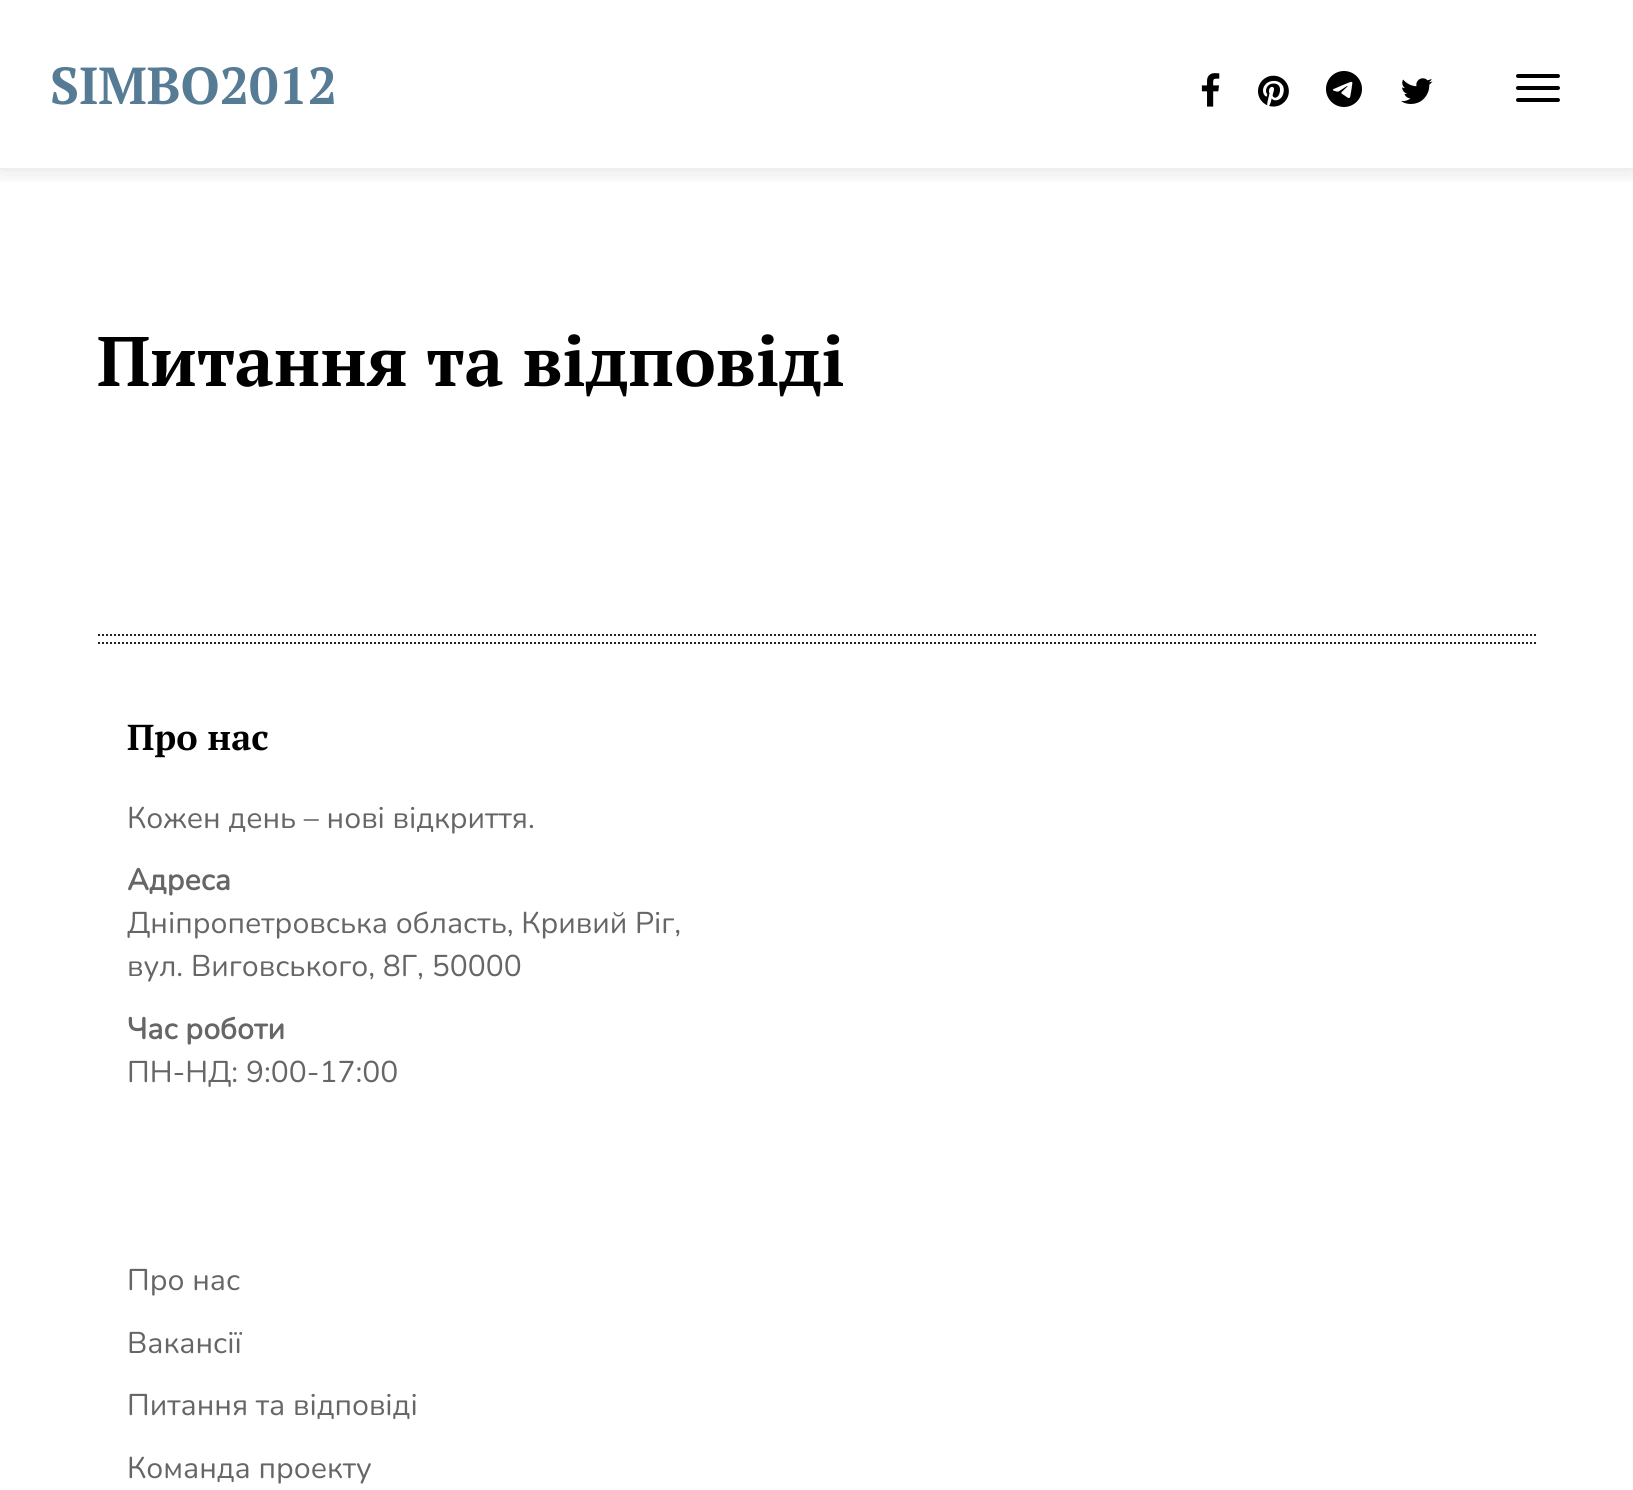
#include <cairo.h>
#include <math.h>
#include <stddef.h>


static void round_rect(cairo_t *cr, double x, double y, double w, double h, double r) {
    cairo_new_sub_path(cr);
    cairo_arc(cr, x + w - r, y + h - r, r, 0, M_PI / 2);
    cairo_arc(cr, x + r, y + h - r, r, M_PI / 2, M_PI);
    cairo_arc(cr, x + r, y + r, r, M_PI, 1.5 * M_PI);
    cairo_arc(cr, x + w - r, y + r, r, 1.5 * M_PI, 2 * M_PI);
    cairo_close_path(cr);
}

static void shadow(cairo_t *cr, double x, double y, double w, double h, double r, double blur, double alpha) {
    cairo_push_group_with_content(cr, CAIRO_CONTENT_ALPHA);
    cairo_set_operator(cr, CAIRO_OPERATOR_SOURCE);
    for (int i = 15; i >= -15 && fmin(w, h) + blur * i / 3 > 0; i -= 2) {
        double e = blur * i / 6;
        cairo_set_source_rgba(cr, 0, 0, 0, alpha * erfc((i - 1) / 8.5) / 2);
        round_rect(cr, x - e, y - e, w + 2 * e, h + 2 * e, fmax(0, fmin(r + e + blur * .6, fmin(w, h) / 2 + e)));
        cairo_fill(cr);
    }
    cairo_pattern_t *soft = cairo_pop_group(cr);
    cairo_mask(cr, soft);
    cairo_pattern_destroy(soft);
}

static void picture(cairo_t *cr, const char *path, double x, double y, double w, double h) {
    cairo_surface_t *image = cairo_image_surface_create_from_png(path);
    cairo_save(cr);
    cairo_set_source_surface(cr, image, x, y);
    cairo_rectangle(cr, x, y, w, h);
    cairo_fill(cr);
    cairo_restore(cr);
    cairo_surface_destroy(image);
}

int main(void) {
    cairo_surface_t *surface = cairo_image_surface_create(CAIRO_FORMAT_RGB24, 1633, 1490);
    cairo_t *cr = cairo_create(surface);
    cairo_font_options_t *options = cairo_font_options_create();
    cairo_font_options_set_hint_metrics(options, CAIRO_HINT_METRICS_OFF);
    cairo_font_options_set_hint_style(options, CAIRO_HINT_STYLE_NONE);
    cairo_set_font_options(cr, options);
    cairo_set_miter_limit(cr, 4);
    cairo_set_source_rgb(cr, 1, 1, 1);
    cairo_paint(cr);
    cairo_save(cr);
    cairo_rectangle(cr, 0, 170, 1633, 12);
    cairo_clip(cr);
    cairo_set_source_rgb(cr, 0, 0, 0);
    shadow(cr, 0, 0, 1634, 170, 0, 12, 0.12);
    cairo_restore(cr);
    cairo_set_source_rgb(cr, 0.933, 0.933, 0.933);
    cairo_rectangle(cr, 0, 168, 1633, 2);
    cairo_fill(cr);
    cairo_select_font_face(cr, "PT Serif", CAIRO_FONT_SLANT_NORMAL, CAIRO_FONT_WEIGHT_BOLD);
    cairo_set_font_size(cr, 52);
    cairo_set_source_rgb(cr, 0.337, 0.482, 0.584);
    cairo_move_to(cr, 50, 104);
    cairo_show_text(cr, "SIMBO2012");
    picture(cr, "img1.png", 1201, 73, 19, 34);
    picture(cr, "img2.png", 1258, 75, 31, 32);
    picture(cr, "img3.png", 1326, 71, 36, 36);
    picture(cr, "img4.png", 1401, 78, 32, 26);
    cairo_set_source_rgb(cr, 0, 0, 0);
    round_rect(cr, 1516, 74, 44, 4, 2);
    cairo_fill(cr);
    round_rect(cr, 1516, 86, 44, 4, 2);
    cairo_fill(cr);
    round_rect(cr, 1516, 98, 44, 4, 2);
    cairo_fill(cr);
    cairo_set_font_size(cr, 70);
    cairo_move_to(cr, 97, 386);
    cairo_show_text(cr, "Питання та відповіді");
    cairo_new_path(cr);
    cairo_move_to(cr, 98, 635);
    cairo_line_to(cr, 1538, 635);
    cairo_set_source_rgb(cr, 0.133, 0.133, 0.133);
    cairo_set_dash(cr, (double[]){2, 2}, 2, 0);
    cairo_stroke(cr);
    cairo_new_path(cr);
    cairo_move_to(cr, 98, 643);
    cairo_line_to(cr, 1538, 643);
    cairo_stroke(cr);
    cairo_set_font_size(cr, 36);
    cairo_set_source_rgb(cr, 0, 0, 0);
    cairo_move_to(cr, 127, 750);
    cairo_show_text(cr, "Про нас");
    cairo_select_font_face(cr, "Nunito", CAIRO_FONT_SLANT_NORMAL, CAIRO_FONT_WEIGHT_NORMAL);
    cairo_set_font_size(cr, 30);
    cairo_set_source_rgb(cr, 0.4, 0.4, 0.4);
    cairo_move_to(cr, 127, 828);
    cairo_show_text(cr, "Кожен день – нові відкриття.");
    cairo_select_font_face(cr, "Nunito", CAIRO_FONT_SLANT_NORMAL, CAIRO_FONT_WEIGHT_BOLD);
    cairo_move_to(cr, 127, 890);
    cairo_show_text(cr, "Адреса");
    cairo_select_font_face(cr, "Nunito", CAIRO_FONT_SLANT_NORMAL, CAIRO_FONT_WEIGHT_NORMAL);
    cairo_move_to(cr, 127, 933);
    cairo_show_text(cr, "Дніпропетровська область, Кривий Ріг,");
    cairo_move_to(cr, 127, 976);
    cairo_show_text(cr, "вул. Виговського, 8Г, 50000");
    cairo_select_font_face(cr, "Nunito", CAIRO_FONT_SLANT_NORMAL, CAIRO_FONT_WEIGHT_BOLD);
    cairo_move_to(cr, 127, 1039);
    cairo_show_text(cr, "Час роботи");
    cairo_select_font_face(cr, "Nunito", CAIRO_FONT_SLANT_NORMAL, CAIRO_FONT_WEIGHT_NORMAL);
    cairo_move_to(cr, 127, 1082);
    cairo_show_text(cr, "ПН-НД: 9:00-17:00");
    cairo_move_to(cr, 127, 1290);
    cairo_show_text(cr, "Про нас");
    cairo_move_to(cr, 127, 1353);
    cairo_show_text(cr, "Вакансії");
    cairo_move_to(cr, 127, 1415);
    cairo_show_text(cr, "Питання та відповіді");
    cairo_move_to(cr, 127, 1478);
    cairo_show_text(cr, "Команда проекту");
    cairo_surface_write_to_png(surface, "page.png");
    cairo_font_options_destroy(options);
    cairo_destroy(cr);
    cairo_surface_destroy(surface);
    return 0;
}
